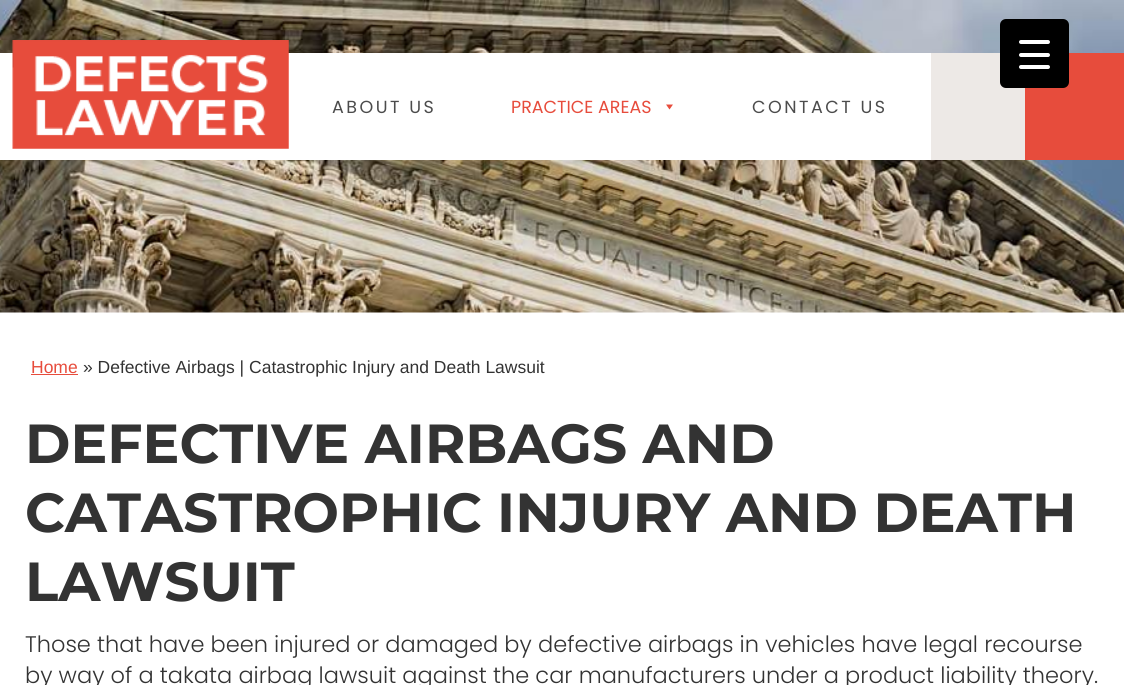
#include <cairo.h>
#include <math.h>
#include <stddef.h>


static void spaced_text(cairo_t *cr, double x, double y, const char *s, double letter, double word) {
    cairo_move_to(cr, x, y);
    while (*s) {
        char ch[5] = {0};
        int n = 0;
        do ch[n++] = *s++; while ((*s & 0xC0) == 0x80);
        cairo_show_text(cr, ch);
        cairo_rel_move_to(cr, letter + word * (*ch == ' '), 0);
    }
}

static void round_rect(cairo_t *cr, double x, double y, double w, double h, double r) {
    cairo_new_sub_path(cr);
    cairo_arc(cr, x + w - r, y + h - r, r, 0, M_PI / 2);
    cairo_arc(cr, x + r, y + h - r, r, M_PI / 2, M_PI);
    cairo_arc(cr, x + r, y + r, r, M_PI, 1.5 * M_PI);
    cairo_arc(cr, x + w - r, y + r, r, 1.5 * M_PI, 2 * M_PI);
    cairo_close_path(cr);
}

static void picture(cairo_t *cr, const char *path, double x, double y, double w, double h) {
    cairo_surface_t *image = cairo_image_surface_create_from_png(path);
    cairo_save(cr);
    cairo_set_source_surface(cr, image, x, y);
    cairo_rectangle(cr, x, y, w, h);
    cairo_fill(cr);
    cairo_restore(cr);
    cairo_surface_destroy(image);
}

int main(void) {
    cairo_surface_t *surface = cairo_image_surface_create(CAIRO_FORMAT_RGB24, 1124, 685);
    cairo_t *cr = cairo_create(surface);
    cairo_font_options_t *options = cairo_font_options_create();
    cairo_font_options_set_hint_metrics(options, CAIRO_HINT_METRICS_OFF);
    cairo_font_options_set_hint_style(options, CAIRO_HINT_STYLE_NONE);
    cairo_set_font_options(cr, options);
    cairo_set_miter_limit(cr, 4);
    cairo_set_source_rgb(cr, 1, 1, 1);
    cairo_paint(cr);
    picture(cr, "img1.png", 0, 0, 1124, 313);
    cairo_set_source_rgb(cr, 0.929, 0.914, 0.902);
    cairo_rectangle(cr, 931, 53, 94, 107);
    cairo_fill(cr);
    cairo_set_source_rgb(cr, 0.906, 0.298, 0.235);
    cairo_rectangle(cr, 1025, 53, 99, 107);
    cairo_fill(cr);
    cairo_set_source_rgb(cr, 0, 0, 0);
    round_rect(cr, 1000, 19, 69, 69, 6);
    cairo_fill(cr);
    cairo_set_source_rgb(cr, 1, 1, 1);
    round_rect(cr, 1019, 53, 31, 4, 2);
    cairo_fill(cr);
    round_rect(cr, 1019, 40, 31, 4, 2);
    cairo_fill(cr);
    round_rect(cr, 1019, 65, 31, 4, 2);
    cairo_fill(cr);
    cairo_rectangle(cr, 0, 53, 931, 107);
    cairo_fill(cr);
    picture(cr, "img2.png", 12, 40, 277, 109);
    cairo_select_font_face(cr, "Poppins", CAIRO_FONT_SLANT_NORMAL, CAIRO_FONT_WEIGHT_NORMAL);
    cairo_set_font_size(cr, 17.5);
    cairo_set_source_rgb(cr, 0.298, 0.298, 0.298);
    spaced_text(cr, 332, 113, "ABOUT US", 2.5, 0);
    cairo_set_source_rgb(cr, 0.906, 0.298, 0.235);
    cairo_move_to(cr, 511, 113);
    cairo_show_text(cr, "PRACTICE AREAS");
    cairo_new_path(cr);
    cairo_move_to(cr, 673, 104.5);
    cairo_line_to(cr, 669.5, 109.5);
    cairo_line_to(cr, 666, 104.5);
    cairo_close_path(cr);
    cairo_fill(cr);
    cairo_set_source_rgb(cr, 0.298, 0.298, 0.298);
    spaced_text(cr, 752, 113, "CONTACT US", 2.5, 0);
    cairo_select_font_face(cr, "Liberation Sans", CAIRO_FONT_SLANT_NORMAL, CAIRO_FONT_WEIGHT_NORMAL);
    cairo_set_source_rgb(cr, 0.906, 0.298, 0.235);
    cairo_move_to(cr, 31, 373);
    cairo_show_text(cr, "Home");
    cairo_rectangle(cr, 31, 374, 47, 1);
    cairo_fill(cr);
    cairo_set_source_rgb(cr, 0.2, 0.2, 0.2);
    cairo_move_to(cr, 83, 373);
    cairo_show_text(cr, "» Defective Airbags | Catastrophic Injury and Death Lawsuit");
    cairo_select_font_face(cr, "Montserrat", CAIRO_FONT_SLANT_NORMAL, CAIRO_FONT_WEIGHT_BOLD);
    cairo_set_font_size(cr, 55);
    cairo_move_to(cr, 25, 463);
    cairo_show_text(cr, "DEFECTIVE AIRBAGS AND");
    cairo_move_to(cr, 25, 532);
    cairo_show_text(cr, "CATASTROPHIC INJURY AND DEATH");
    cairo_move_to(cr, 25, 601);
    cairo_show_text(cr, "LAWSUIT");
    cairo_select_font_face(cr, "Poppins Light", CAIRO_FONT_SLANT_NORMAL, CAIRO_FONT_WEIGHT_NORMAL);
    cairo_set_font_size(cr, 22.5);
    cairo_move_to(cr, 25, 652);
    cairo_show_text(cr, "Those that have been injured or damaged by defective airbags in vehicles have legal recourse");
    cairo_move_to(cr, 25, 683);
    cairo_show_text(cr, "by way of a takata airbag lawsuit against the car manufacturers under a product liability theory.");
    cairo_surface_write_to_png(surface, "page.png");
    cairo_font_options_destroy(options);
    cairo_destroy(cr);
    cairo_surface_destroy(surface);
    return 0;
}
